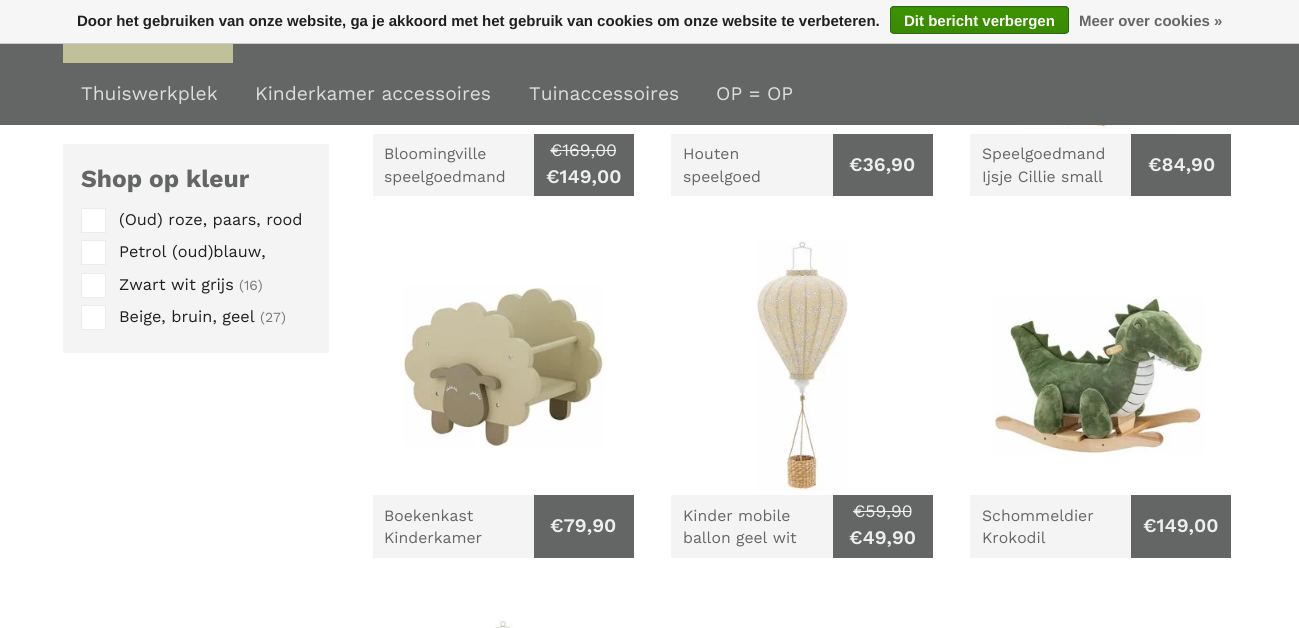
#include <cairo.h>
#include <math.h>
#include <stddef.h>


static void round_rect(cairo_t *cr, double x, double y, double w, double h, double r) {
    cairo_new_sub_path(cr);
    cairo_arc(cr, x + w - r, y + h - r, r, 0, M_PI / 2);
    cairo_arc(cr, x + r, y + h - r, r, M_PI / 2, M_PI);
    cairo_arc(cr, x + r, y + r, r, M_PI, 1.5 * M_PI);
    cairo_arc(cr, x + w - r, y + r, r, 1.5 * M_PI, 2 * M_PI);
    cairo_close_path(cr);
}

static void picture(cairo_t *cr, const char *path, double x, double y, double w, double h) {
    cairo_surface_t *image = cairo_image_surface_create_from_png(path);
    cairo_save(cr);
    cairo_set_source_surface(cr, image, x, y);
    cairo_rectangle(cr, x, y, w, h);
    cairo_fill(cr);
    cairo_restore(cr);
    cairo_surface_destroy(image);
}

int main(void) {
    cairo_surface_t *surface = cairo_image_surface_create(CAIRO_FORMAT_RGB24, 1299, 628);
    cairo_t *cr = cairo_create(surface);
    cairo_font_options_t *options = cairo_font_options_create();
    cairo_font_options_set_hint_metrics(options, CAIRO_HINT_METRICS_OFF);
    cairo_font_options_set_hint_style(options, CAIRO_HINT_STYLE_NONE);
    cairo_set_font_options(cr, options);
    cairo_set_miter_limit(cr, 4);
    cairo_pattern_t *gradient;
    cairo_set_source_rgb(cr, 1, 1, 1);
    cairo_paint(cr);
    cairo_set_source_rgb(cr, 0.961, 0.961, 0.961);
    cairo_rectangle(cr, 0, 0, 1299, 43);
    cairo_fill(cr);
    cairo_set_source_rgb(cr, 0.8, 0.8, 0.8);
    cairo_rectangle(cr, 0, 43, 1299, 1);
    cairo_fill(cr);
    cairo_select_font_face(cr, "Liberation Sans", CAIRO_FONT_SLANT_NORMAL, CAIRO_FONT_WEIGHT_BOLD);
    cairo_set_font_size(cr, 15);
    cairo_set_source_rgb(cr, 0.125, 0.125, 0.125);
    cairo_move_to(cr, 77, 26);
    cairo_show_text(cr, "Door het gebruiken van onze website, ga je akkoord met het gebruik van cookies om onze website te verbeteren.");
    cairo_save(cr);
    round_rect(cr, 890, 6, 179, 28, 4);
    cairo_clip(cr);
    gradient = cairo_pattern_create_linear(979, -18, 979, 7.5);
    cairo_pattern_add_color_stop_rgba(gradient, 0, 0.235, 0.576, 0, 1);
    cairo_pattern_add_color_stop_rgba(gradient, 1, 0.224, 0.541, 0, 1);
    cairo_set_source(cr, gradient);
    cairo_pattern_destroy(gradient);
    cairo_rectangle(cr, 890, 6, 179, 2);
    cairo_fill(cr);
    gradient = cairo_pattern_create_linear(979, 7.5, 979, 33);
    cairo_pattern_add_color_stop_rgba(gradient, 0, 0.235, 0.576, 0, 1);
    cairo_pattern_add_color_stop_rgba(gradient, 1, 0.224, 0.541, 0, 1);
    cairo_set_source(cr, gradient);
    cairo_pattern_destroy(gradient);
    cairo_rectangle(cr, 890, 8, 179, 25);
    cairo_fill(cr);
    cairo_restore(cr);
    round_rect(cr, 890.5, 6.5, 178, 27, 3.5);
    cairo_set_source_rgb(cr, 0.161, 0.412, 0.114);
    cairo_set_line_width(cr, 1);
    cairo_stroke(cr);
    cairo_set_source_rgb(cr, 1, 1, 1);
    cairo_move_to(cr, 904, 26);
    cairo_show_text(cr, "Dit bericht verbergen");
    cairo_set_source_rgb(cr, 0.392, 0.396, 0.396);
    cairo_move_to(cr, 1079, 26);
    cairo_show_text(cr, "Meer over cookies »");
    cairo_rectangle(cr, 0, 44, 1299, 81);
    cairo_fill(cr);
    cairo_set_source_rgb(cr, 0.757, 0.757, 0.6);
    cairo_rectangle(cr, 63, 44, 170, 19);
    cairo_fill(cr);
    cairo_select_font_face(cr, "Work Sans", CAIRO_FONT_SLANT_NORMAL, CAIRO_FONT_WEIGHT_NORMAL);
    cairo_set_font_size(cr, 19.25);
    cairo_set_source_rgb(cr, 0.867, 0.867, 0.867);
    cairo_move_to(cr, 81, 100);
    cairo_show_text(cr, "Thuiswerkplek");
    cairo_move_to(cr, 255, 100);
    cairo_show_text(cr, "Kinderkamer accessoires");
    cairo_move_to(cr, 529, 100);
    cairo_show_text(cr, "Tuinaccessoires");
    cairo_move_to(cr, 716, 100);
    cairo_show_text(cr, "OP = OP");
    cairo_set_source_rgb(cr, 0.957, 0.957, 0.957);
    cairo_rectangle(cr, 63, 144, 266, 209);
    cairo_fill(cr);
    cairo_select_font_face(cr, "Work Sans", CAIRO_FONT_SLANT_NORMAL, CAIRO_FONT_WEIGHT_BOLD);
    cairo_set_font_size(cr, 24.5);
    cairo_set_source_rgb(cr, 0.392, 0.396, 0.396);
    cairo_move_to(cr, 81, 187);
    cairo_show_text(cr, "Shop op kleur");
    cairo_set_source_rgb(cr, 1, 1, 1);
    cairo_rectangle(cr, 81.5, 208.5, 24, 24);
    cairo_fill_preserve(cr);
    cairo_set_source_rgb(cr, 0.922, 0.922, 0.922);
    cairo_stroke(cr);
    cairo_select_font_face(cr, "Work Sans", CAIRO_FONT_SLANT_NORMAL, CAIRO_FONT_WEIGHT_NORMAL);
    cairo_set_font_size(cr, 16.25);
    cairo_set_source_rgb(cr, 0.125, 0.125, 0.125);
    cairo_move_to(cr, 119, 225);
    cairo_show_text(cr, "(Oud) roze, paars, rood");
    cairo_set_source_rgb(cr, 1, 1, 1);
    cairo_rectangle(cr, 81.5, 240.5, 24, 24);
    cairo_fill_preserve(cr);
    cairo_set_source_rgb(cr, 0.922, 0.922, 0.922);
    cairo_stroke(cr);
    cairo_set_source_rgb(cr, 0.125, 0.125, 0.125);
    cairo_move_to(cr, 119, 257);
    cairo_show_text(cr, "Petrol (oud)blauw,");
    cairo_set_source_rgb(cr, 1, 1, 1);
    cairo_rectangle(cr, 81.5, 273.5, 24, 24);
    cairo_fill_preserve(cr);
    cairo_set_source_rgb(cr, 0.922, 0.922, 0.922);
    cairo_stroke(cr);
    cairo_set_source_rgb(cr, 0.125, 0.125, 0.125);
    cairo_move_to(cr, 119, 290);
    cairo_show_text(cr, "Zwart wit grijs");
    cairo_set_font_size(cr, 14);
    cairo_set_source_rgb(cr, 0.482, 0.482, 0.482);
    cairo_move_to(cr, 239, 290);
    cairo_show_text(cr, "(16)");
    cairo_set_source_rgb(cr, 1, 1, 1);
    cairo_rectangle(cr, 81.5, 305.5, 24, 24);
    cairo_fill_preserve(cr);
    cairo_set_source_rgb(cr, 0.922, 0.922, 0.922);
    cairo_stroke(cr);
    cairo_set_font_size(cr, 16.25);
    cairo_set_source_rgb(cr, 0.125, 0.125, 0.125);
    cairo_move_to(cr, 119, 322);
    cairo_show_text(cr, "Beige, bruin, geel");
    cairo_set_font_size(cr, 14);
    cairo_set_source_rgb(cr, 0.482, 0.482, 0.482);
    cairo_move_to(cr, 260, 322);
    cairo_show_text(cr, "(27)");
    cairo_set_source_rgb(cr, 0.957, 0.957, 0.957);
    cairo_rectangle(cr, 373, 134, 161, 62);
    cairo_fill(cr);
    cairo_set_font_size(cr, 15.75);
    cairo_set_source_rgb(cr, 0.392, 0.396, 0.396);
    cairo_move_to(cr, 384, 159);
    cairo_show_text(cr, "Bloomingville");
    cairo_move_to(cr, 384, 182);
    cairo_show_text(cr, "speelgoedmand");
    cairo_rectangle(cr, 534, 134, 100, 62);
    cairo_fill(cr);
    cairo_set_font_size(cr, 17.5);
    cairo_set_source_rgb(cr, 0.933, 0.933, 0.933);
    cairo_move_to(cr, 550, 156);
    cairo_show_text(cr, "€169,00");
    cairo_rectangle(cr, 550, 150, 66, 1);
    cairo_fill(cr);
    cairo_select_font_face(cr, "Work Sans SemiBold", CAIRO_FONT_SLANT_NORMAL, CAIRO_FONT_WEIGHT_NORMAL);
    cairo_set_font_size(cr, 19.25);
    cairo_move_to(cr, 546, 183);
    cairo_show_text(cr, "€149,00");
    cairo_set_source_rgb(cr, 0.957, 0.957, 0.957);
    cairo_rectangle(cr, 671, 134, 162, 62);
    cairo_fill(cr);
    cairo_select_font_face(cr, "Work Sans", CAIRO_FONT_SLANT_NORMAL, CAIRO_FONT_WEIGHT_NORMAL);
    cairo_set_font_size(cr, 15.75);
    cairo_set_source_rgb(cr, 0.392, 0.396, 0.396);
    cairo_move_to(cr, 683, 159);
    cairo_show_text(cr, "Houten");
    cairo_move_to(cr, 683, 182);
    cairo_show_text(cr, "speelgoed");
    cairo_rectangle(cr, 833, 134, 100, 62);
    cairo_fill(cr);
    cairo_select_font_face(cr, "Work Sans SemiBold", CAIRO_FONT_SLANT_NORMAL, CAIRO_FONT_WEIGHT_NORMAL);
    cairo_set_font_size(cr, 19.25);
    cairo_set_source_rgb(cr, 0.933, 0.933, 0.933);
    cairo_move_to(cr, 849, 171);
    cairo_show_text(cr, "€36,90");
    picture(cr, "img1.png", 1021, 125, 155, 4);
    cairo_set_source_rgb(cr, 0.957, 0.957, 0.957);
    cairo_rectangle(cr, 970, 134, 161, 62);
    cairo_fill(cr);
    cairo_select_font_face(cr, "Work Sans", CAIRO_FONT_SLANT_NORMAL, CAIRO_FONT_WEIGHT_NORMAL);
    cairo_set_font_size(cr, 15.75);
    cairo_set_source_rgb(cr, 0.392, 0.396, 0.396);
    cairo_move_to(cr, 982, 159);
    cairo_show_text(cr, "Speelgoedmand");
    cairo_move_to(cr, 982, 182);
    cairo_show_text(cr, "Ijsje Cillie small");
    cairo_rectangle(cr, 1131, 134, 100, 62);
    cairo_fill(cr);
    cairo_select_font_face(cr, "Work Sans SemiBold", CAIRO_FONT_SLANT_NORMAL, CAIRO_FONT_WEIGHT_NORMAL);
    cairo_set_font_size(cr, 19.25);
    cairo_set_source_rgb(cr, 0.933, 0.933, 0.933);
    cairo_move_to(cr, 1148, 171);
    cairo_show_text(cr, "€84,90");
    picture(cr, "img2.png", 403, 286, 201, 161);
    cairo_set_source_rgb(cr, 0.957, 0.957, 0.957);
    cairo_rectangle(cr, 373, 495, 161, 63);
    cairo_fill(cr);
    cairo_select_font_face(cr, "Work Sans", CAIRO_FONT_SLANT_NORMAL, CAIRO_FONT_WEIGHT_NORMAL);
    cairo_set_font_size(cr, 15.75);
    cairo_set_source_rgb(cr, 0.392, 0.396, 0.396);
    cairo_move_to(cr, 384, 521);
    cairo_show_text(cr, "Boekenkast");
    cairo_move_to(cr, 384, 543);
    cairo_show_text(cr, "Kinderkamer");
    cairo_rectangle(cr, 534, 495, 100, 63);
    cairo_fill(cr);
    cairo_select_font_face(cr, "Work Sans SemiBold", CAIRO_FONT_SLANT_NORMAL, CAIRO_FONT_WEIGHT_NORMAL);
    cairo_set_font_size(cr, 19.25);
    cairo_set_source_rgb(cr, 0.933, 0.933, 0.933);
    cairo_move_to(cr, 550, 532);
    cairo_show_text(cr, "€79,90");
    picture(cr, "img3.png", 756, 240, 93, 251);
    cairo_set_source_rgb(cr, 0.957, 0.957, 0.957);
    cairo_rectangle(cr, 671, 495, 162, 63);
    cairo_fill(cr);
    cairo_select_font_face(cr, "Work Sans", CAIRO_FONT_SLANT_NORMAL, CAIRO_FONT_WEIGHT_NORMAL);
    cairo_set_font_size(cr, 15.75);
    cairo_set_source_rgb(cr, 0.392, 0.396, 0.396);
    cairo_move_to(cr, 683, 521);
    cairo_show_text(cr, "Kinder mobile");
    cairo_move_to(cr, 683, 543);
    cairo_show_text(cr, "ballon geel wit");
    cairo_rectangle(cr, 833, 495, 100, 63);
    cairo_fill(cr);
    cairo_set_font_size(cr, 17.5);
    cairo_set_source_rgb(cr, 0.933, 0.933, 0.933);
    cairo_move_to(cr, 853, 517);
    cairo_show_text(cr, "€59,90");
    cairo_rectangle(cr, 853, 511, 58, 1);
    cairo_fill(cr);
    cairo_select_font_face(cr, "Work Sans SemiBold", CAIRO_FONT_SLANT_NORMAL, CAIRO_FONT_WEIGHT_NORMAL);
    cairo_set_font_size(cr, 19.25);
    cairo_move_to(cr, 849, 544);
    cairo_show_text(cr, "€49,90");
    picture(cr, "img4.png", 992, 297, 213, 158);
    cairo_set_source_rgb(cr, 0.957, 0.957, 0.957);
    cairo_rectangle(cr, 970, 495, 161, 63);
    cairo_fill(cr);
    cairo_select_font_face(cr, "Work Sans", CAIRO_FONT_SLANT_NORMAL, CAIRO_FONT_WEIGHT_NORMAL);
    cairo_set_font_size(cr, 15.75);
    cairo_set_source_rgb(cr, 0.392, 0.396, 0.396);
    cairo_move_to(cr, 982, 521);
    cairo_show_text(cr, "Schommeldier");
    cairo_move_to(cr, 982, 543);
    cairo_show_text(cr, "Krokodil");
    cairo_rectangle(cr, 1131, 495, 100, 63);
    cairo_fill(cr);
    cairo_select_font_face(cr, "Work Sans SemiBold", CAIRO_FONT_SLANT_NORMAL, CAIRO_FONT_WEIGHT_NORMAL);
    cairo_set_font_size(cr, 19.25);
    cairo_set_source_rgb(cr, 0.933, 0.933, 0.933);
    cairo_move_to(cr, 1143, 532);
    cairo_show_text(cr, "€149,00");
    picture(cr, "img5.png", 495, 620, 18, 8);
    cairo_surface_write_to_png(surface, "page.png");
    cairo_font_options_destroy(options);
    cairo_destroy(cr);
    cairo_surface_destroy(surface);
    return 0;
}
